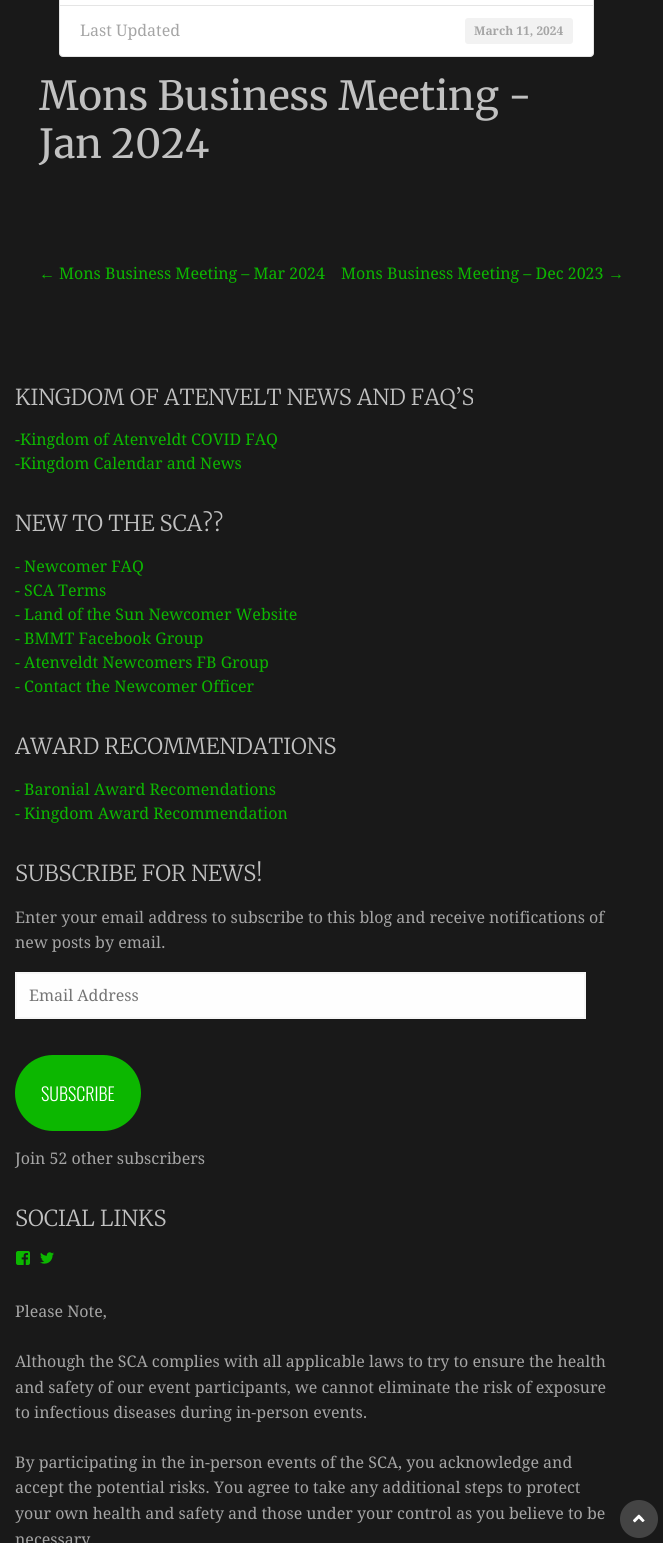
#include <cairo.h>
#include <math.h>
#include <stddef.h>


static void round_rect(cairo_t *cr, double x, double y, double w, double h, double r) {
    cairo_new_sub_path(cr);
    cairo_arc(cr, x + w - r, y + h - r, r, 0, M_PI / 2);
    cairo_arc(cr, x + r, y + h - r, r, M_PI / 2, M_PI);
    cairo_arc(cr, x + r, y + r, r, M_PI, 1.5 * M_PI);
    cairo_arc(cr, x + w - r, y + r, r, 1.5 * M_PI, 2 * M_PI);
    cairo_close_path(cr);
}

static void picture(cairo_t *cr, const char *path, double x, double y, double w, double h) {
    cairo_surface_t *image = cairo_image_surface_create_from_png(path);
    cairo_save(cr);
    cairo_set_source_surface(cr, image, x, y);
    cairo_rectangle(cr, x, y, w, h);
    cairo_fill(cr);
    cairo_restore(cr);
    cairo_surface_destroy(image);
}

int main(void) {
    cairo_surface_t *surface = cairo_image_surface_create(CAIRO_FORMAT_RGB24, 663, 1543);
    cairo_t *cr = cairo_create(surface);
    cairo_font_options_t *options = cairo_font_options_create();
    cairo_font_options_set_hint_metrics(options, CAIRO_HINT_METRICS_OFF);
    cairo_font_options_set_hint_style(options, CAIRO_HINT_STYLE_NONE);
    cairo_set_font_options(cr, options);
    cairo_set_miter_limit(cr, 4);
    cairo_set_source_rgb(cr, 0.098, 0.098, 0.098);
    cairo_paint(cr);
    cairo_set_source_rgb(cr, 1, 1, 1);
    cairo_rectangle(cr, 59.5, -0.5, 534, 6);
    cairo_fill_preserve(cr);
    cairo_set_source_rgb(cr, 0.898, 0.898, 0.898);
    cairo_set_line_width(cr, 1);
    cairo_stroke(cr);
    cairo_set_source_rgb(cr, 1, 1, 1);
    cairo_new_path(cr);
    cairo_move_to(cr, 59.5, 5.5);
    cairo_line_to(cr, 593.5, 5.5);
    cairo_line_to(cr, 593.5, 53);
    cairo_curve_to(cr, 593.5, 55, 592, 56.5, 590, 56.5);
    cairo_line_to(cr, 63, 56.5);
    cairo_curve_to(cr, 61, 56.5, 59.5, 55, 59.5, 53);
    cairo_close_path(cr);
    cairo_fill_preserve(cr);
    cairo_set_source_rgb(cr, 0.898, 0.898, 0.898);
    cairo_stroke(cr);
    cairo_select_font_face(cr, "Droid Serif", CAIRO_FONT_SLANT_NORMAL, CAIRO_FONT_WEIGHT_NORMAL);
    cairo_set_font_size(cr, 16);
    cairo_set_source_rgb(cr, 0.647, 0.647, 0.647);
    cairo_move_to(cr, 80, 36);
    cairo_show_text(cr, "Last Updated");
    cairo_set_source_rgb(cr, 0.949, 0.949, 0.949);
    round_rect(cr, 465, 18, 108, 26, 3);
    cairo_fill(cr);
    cairo_select_font_face(cr, "Droid Serif", CAIRO_FONT_SLANT_NORMAL, CAIRO_FONT_WEIGHT_BOLD);
    cairo_set_font_size(cr, 12);
    cairo_set_source_rgb(cr, 0.647, 0.647, 0.647);
    cairo_move_to(cr, 474, 35);
    cairo_show_text(cr, "March 11, 2024");
    cairo_select_font_face(cr, "Merriweather", CAIRO_FONT_SLANT_NORMAL, CAIRO_FONT_WEIGHT_NORMAL);
    cairo_set_font_size(cr, 40);
    cairo_set_source_rgb(cr, 0.757, 0.757, 0.757);
    cairo_move_to(cr, 39, 110);
    cairo_show_text(cr, "Mons Business Meeting -");
    cairo_move_to(cr, 39, 158);
    cairo_show_text(cr, "Jan 2024");
    cairo_select_font_face(cr, "Liberation Sans", CAIRO_FONT_SLANT_NORMAL, CAIRO_FONT_WEIGHT_NORMAL);
    cairo_set_font_size(cr, 16);
    cairo_set_source_rgb(cr, 0.047, 0.718, 0);
    cairo_move_to(cr, 39, 279);
    cairo_show_text(cr, "←");
    cairo_select_font_face(cr, "Droid Serif", CAIRO_FONT_SLANT_NORMAL, CAIRO_FONT_WEIGHT_NORMAL);
    cairo_move_to(cr, 59, 279);
    cairo_show_text(cr, "Mons Business Meeting – Mar 2024");
    cairo_move_to(cr, 341, 279);
    cairo_show_text(cr, "Mons Business Meeting – Dec 2023");
    cairo_select_font_face(cr, "Liberation Sans", CAIRO_FONT_SLANT_NORMAL, CAIRO_FONT_WEIGHT_NORMAL);
    cairo_move_to(cr, 608, 279);
    cairo_show_text(cr, "→");
    cairo_select_font_face(cr, "Merriweather Light", CAIRO_FONT_SLANT_NORMAL, CAIRO_FONT_WEIGHT_NORMAL);
    cairo_set_font_size(cr, 22);
    cairo_set_source_rgb(cr, 0.757, 0.757, 0.757);
    cairo_move_to(cr, 15, 405);
    cairo_show_text(cr, "KINGDOM OF ATENVELT NEWS AND FAQ’S");
    cairo_select_font_face(cr, "Droid Serif", CAIRO_FONT_SLANT_NORMAL, CAIRO_FONT_WEIGHT_NORMAL);
    cairo_set_font_size(cr, 16);
    cairo_set_source_rgb(cr, 0.047, 0.718, 0);
    cairo_move_to(cr, 15, 445);
    cairo_show_text(cr, "-Kingdom of Atenveldt COVID FAQ");
    cairo_move_to(cr, 15, 469);
    cairo_show_text(cr, "-Kingdom Calendar and News");
    cairo_select_font_face(cr, "Merriweather Light", CAIRO_FONT_SLANT_NORMAL, CAIRO_FONT_WEIGHT_NORMAL);
    cairo_set_font_size(cr, 22);
    cairo_set_source_rgb(cr, 0.757, 0.757, 0.757);
    cairo_move_to(cr, 15, 531);
    cairo_show_text(cr, "NEW TO THE SCA?\077");
    cairo_select_font_face(cr, "Droid Serif", CAIRO_FONT_SLANT_NORMAL, CAIRO_FONT_WEIGHT_NORMAL);
    cairo_set_font_size(cr, 16);
    cairo_set_source_rgb(cr, 0.047, 0.718, 0);
    cairo_move_to(cr, 15, 572);
    cairo_show_text(cr, "- Newcomer FAQ");
    cairo_move_to(cr, 15, 596);
    cairo_show_text(cr, "- SCA Terms");
    cairo_move_to(cr, 15, 620);
    cairo_show_text(cr, "- Land of the Sun Newcomer Website");
    cairo_move_to(cr, 15, 644);
    cairo_show_text(cr, "- BMMT Facebook Group");
    cairo_move_to(cr, 15, 668);
    cairo_show_text(cr, "- Atenveldt Newcomers FB Group");
    cairo_move_to(cr, 15, 692);
    cairo_show_text(cr, "- Contact the Newcomer Officer");
    cairo_select_font_face(cr, "Merriweather Light", CAIRO_FONT_SLANT_NORMAL, CAIRO_FONT_WEIGHT_NORMAL);
    cairo_set_font_size(cr, 22);
    cairo_set_source_rgb(cr, 0.757, 0.757, 0.757);
    cairo_move_to(cr, 15, 754);
    cairo_show_text(cr, "AWARD RECOMMENDATIONS");
    cairo_select_font_face(cr, "Droid Serif", CAIRO_FONT_SLANT_NORMAL, CAIRO_FONT_WEIGHT_NORMAL);
    cairo_set_font_size(cr, 16);
    cairo_set_source_rgb(cr, 0.047, 0.718, 0);
    cairo_move_to(cr, 15, 795);
    cairo_show_text(cr, "- Baronial Award Recomendations");
    cairo_move_to(cr, 15, 819);
    cairo_show_text(cr, "- Kingdom Award Recommendation");
    cairo_select_font_face(cr, "Merriweather Light", CAIRO_FONT_SLANT_NORMAL, CAIRO_FONT_WEIGHT_NORMAL);
    cairo_set_font_size(cr, 22);
    cairo_set_source_rgb(cr, 0.757, 0.757, 0.757);
    cairo_move_to(cr, 15, 881);
    cairo_show_text(cr, "SUBSCRIBE FOR NEWS!");
    cairo_select_font_face(cr, "Droid Serif", CAIRO_FONT_SLANT_NORMAL, CAIRO_FONT_WEIGHT_NORMAL);
    cairo_set_font_size(cr, 16);
    cairo_set_source_rgb(cr, 0.647, 0.647, 0.647);
    cairo_move_to(cr, 15, 923);
    cairo_show_text(cr, "Enter your email address to subscribe to this blog and receive notifications of");
    cairo_move_to(cr, 15, 948);
    cairo_show_text(cr, "new posts by email.");
    cairo_set_source_rgb(cr, 0.996, 0.996, 0.996);
    cairo_rectangle(cr, 16, 973, 569, 45);
    cairo_fill_preserve(cr);
    cairo_set_source_rgb(cr, 0.961, 0.961, 0.961);
    cairo_set_line_width(cr, 2);
    cairo_stroke(cr);
    cairo_set_source_rgb(cr, 0.459, 0.459, 0.459);
    cairo_move_to(cr, 29, 1001);
    cairo_show_text(cr, "Email Address");
    cairo_set_source_rgb(cr, 0.047, 0.718, 0);
    round_rect(cr, 15, 1055, 126, 76, 38);
    cairo_fill(cr);
    cairo_select_font_face(cr, "Oswald Light", CAIRO_FONT_SLANT_NORMAL, CAIRO_FONT_WEIGHT_NORMAL);
    cairo_set_font_size(cr, 18);
    cairo_set_source_rgb(cr, 1, 1, 1);
    cairo_move_to(cr, 41, 1101);
    cairo_show_text(cr, "SUBSCRIBE");
    cairo_select_font_face(cr, "Droid Serif", CAIRO_FONT_SLANT_NORMAL, CAIRO_FONT_WEIGHT_NORMAL);
    cairo_set_font_size(cr, 16);
    cairo_set_source_rgb(cr, 0.647, 0.647, 0.647);
    cairo_move_to(cr, 15, 1164);
    cairo_show_text(cr, "Join 52 other subscribers");
    cairo_select_font_face(cr, "Merriweather Light", CAIRO_FONT_SLANT_NORMAL, CAIRO_FONT_WEIGHT_NORMAL);
    cairo_set_font_size(cr, 22);
    cairo_set_source_rgb(cr, 0.757, 0.757, 0.757);
    cairo_move_to(cr, 15, 1226);
    cairo_show_text(cr, "SOCIAL LINKS");
    picture(cr, "img1.png", 16, 1251, 14, 14);
    picture(cr, "img2.png", 40, 1252, 14, 12);
    cairo_select_font_face(cr, "Droid Serif", CAIRO_FONT_SLANT_NORMAL, CAIRO_FONT_WEIGHT_NORMAL);
    cairo_set_font_size(cr, 16);
    cairo_set_source_rgb(cr, 0.647, 0.647, 0.647);
    cairo_move_to(cr, 15, 1317);
    cairo_show_text(cr, "Please Note,");
    cairo_move_to(cr, 15, 1367);
    cairo_show_text(cr, "Although the SCA complies with all applicable laws to try to ensure the health");
    cairo_move_to(cr, 15, 1393);
    cairo_show_text(cr, "and safety of our event participants, we cannot eliminate the risk of exposure");
    cairo_move_to(cr, 15, 1418);
    cairo_show_text(cr, "to infectious diseases during in-person events.");
    cairo_move_to(cr, 15, 1468);
    cairo_show_text(cr, "By participating in the in-person events of the SCA, you acknowledge and");
    cairo_move_to(cr, 15, 1493);
    cairo_show_text(cr, "accept the potential risks. You agree to take any additional steps to protect");
    cairo_move_to(cr, 15, 1519);
    cairo_show_text(cr, "your own health and safety and those under your control as you believe to be");
    cairo_move_to(cr, 15, 1545);
    cairo_show_text(cr, "necessary.");
    cairo_set_source_rgb(cr, 0.267, 0.267, 0.267);
    cairo_new_path(cr);
    cairo_arc(cr, 639, 1519, 19, 0, 2 * M_PI);
    cairo_fill(cr);
    picture(cr, "img3.png", 633, 1514, 12, 9);
    cairo_surface_write_to_png(surface, "page.png");
    cairo_font_options_destroy(options);
    cairo_destroy(cr);
    cairo_surface_destroy(surface);
    return 0;
}
